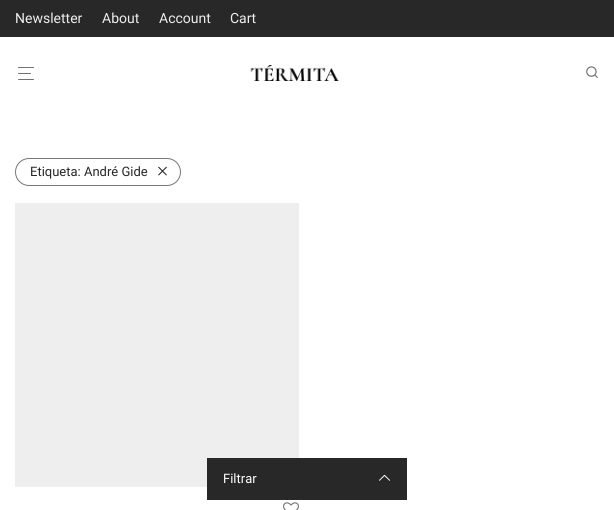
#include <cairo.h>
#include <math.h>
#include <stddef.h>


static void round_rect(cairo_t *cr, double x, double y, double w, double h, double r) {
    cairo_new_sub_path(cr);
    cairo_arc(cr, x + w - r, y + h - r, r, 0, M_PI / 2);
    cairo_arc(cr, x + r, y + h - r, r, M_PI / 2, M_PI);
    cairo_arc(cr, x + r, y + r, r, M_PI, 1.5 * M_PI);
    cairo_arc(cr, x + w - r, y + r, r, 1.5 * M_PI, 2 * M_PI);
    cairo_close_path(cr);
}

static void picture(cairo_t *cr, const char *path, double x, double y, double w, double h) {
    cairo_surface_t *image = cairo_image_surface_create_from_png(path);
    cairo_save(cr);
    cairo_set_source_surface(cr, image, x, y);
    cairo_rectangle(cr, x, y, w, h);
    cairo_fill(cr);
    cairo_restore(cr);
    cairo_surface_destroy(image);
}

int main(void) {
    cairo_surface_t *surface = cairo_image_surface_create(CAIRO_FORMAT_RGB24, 614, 510);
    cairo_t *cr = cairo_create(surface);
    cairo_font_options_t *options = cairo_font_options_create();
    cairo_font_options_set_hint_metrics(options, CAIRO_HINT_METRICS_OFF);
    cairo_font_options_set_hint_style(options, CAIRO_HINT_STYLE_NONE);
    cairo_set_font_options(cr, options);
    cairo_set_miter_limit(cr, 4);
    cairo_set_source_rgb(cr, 1, 1, 1);
    cairo_paint(cr);
    cairo_set_source_rgb(cr, 0.157, 0.157, 0.157);
    cairo_rectangle(cr, 0, 0, 614, 37);
    cairo_fill(cr);
    cairo_select_font_face(cr, "Roboto", CAIRO_FONT_SLANT_NORMAL, CAIRO_FONT_WEIGHT_NORMAL);
    cairo_set_font_size(cr, 14);
    cairo_set_source_rgb(cr, 0.933, 0.933, 0.933);
    cairo_move_to(cr, 15, 23);
    cairo_show_text(cr, "Newsletter");
    cairo_move_to(cr, 102, 23);
    cairo_show_text(cr, "About");
    cairo_move_to(cr, 159, 23);
    cairo_show_text(cr, "Account");
    cairo_move_to(cr, 230, 23);
    cairo_show_text(cr, "Cart");
    cairo_set_source_rgb(cr, 0.439, 0.439, 0.439);
    round_rect(cr, 18, 67, 16, 1, 0.5);
    cairo_fill(cr);
    round_rect(cr, 18, 73, 13, 1, 0.5);
    cairo_fill(cr);
    round_rect(cr, 18, 79, 16, 1, 0.5);
    cairo_fill(cr);
    picture(cr, "img1.png", 250, 65, 89, 16);
    picture(cr, "img2.png", 586, 66, 12, 12);
    round_rect(cr, 15.5, 158.5, 165, 27, 13.5);
    cairo_set_source_rgb(cr, 0.467, 0.467, 0.467);
    cairo_set_line_width(cr, 1);
    cairo_stroke(cr);
    cairo_set_font_size(cr, 13);
    cairo_set_source_rgb(cr, 0.157, 0.157, 0.157);
    cairo_move_to(cr, 30, 176);
    cairo_show_text(cr, "Etiqueta: André Gide");
    picture(cr, "img3.png", 158, 166, 9, 10);
    cairo_set_source_rgb(cr, 0.933, 0.933, 0.933);
    cairo_rectangle(cr, 15, 203, 284, 284);
    cairo_fill(cr);
    picture(cr, "img4.png", 283, 502, 16, 8);
    cairo_set_source_rgb(cr, 0.157, 0.157, 0.157);
    cairo_rectangle(cr, 207, 458, 200, 42);
    cairo_fill(cr);
    cairo_set_source_rgb(cr, 1, 1, 1);
    cairo_move_to(cr, 223, 483);
    cairo_show_text(cr, "Filtrar");
    picture(cr, "img5.png", 379, 474, 11, 7);
    cairo_surface_write_to_png(surface, "page.png");
    cairo_font_options_destroy(options);
    cairo_destroy(cr);
    cairo_surface_destroy(surface);
    return 0;
}
